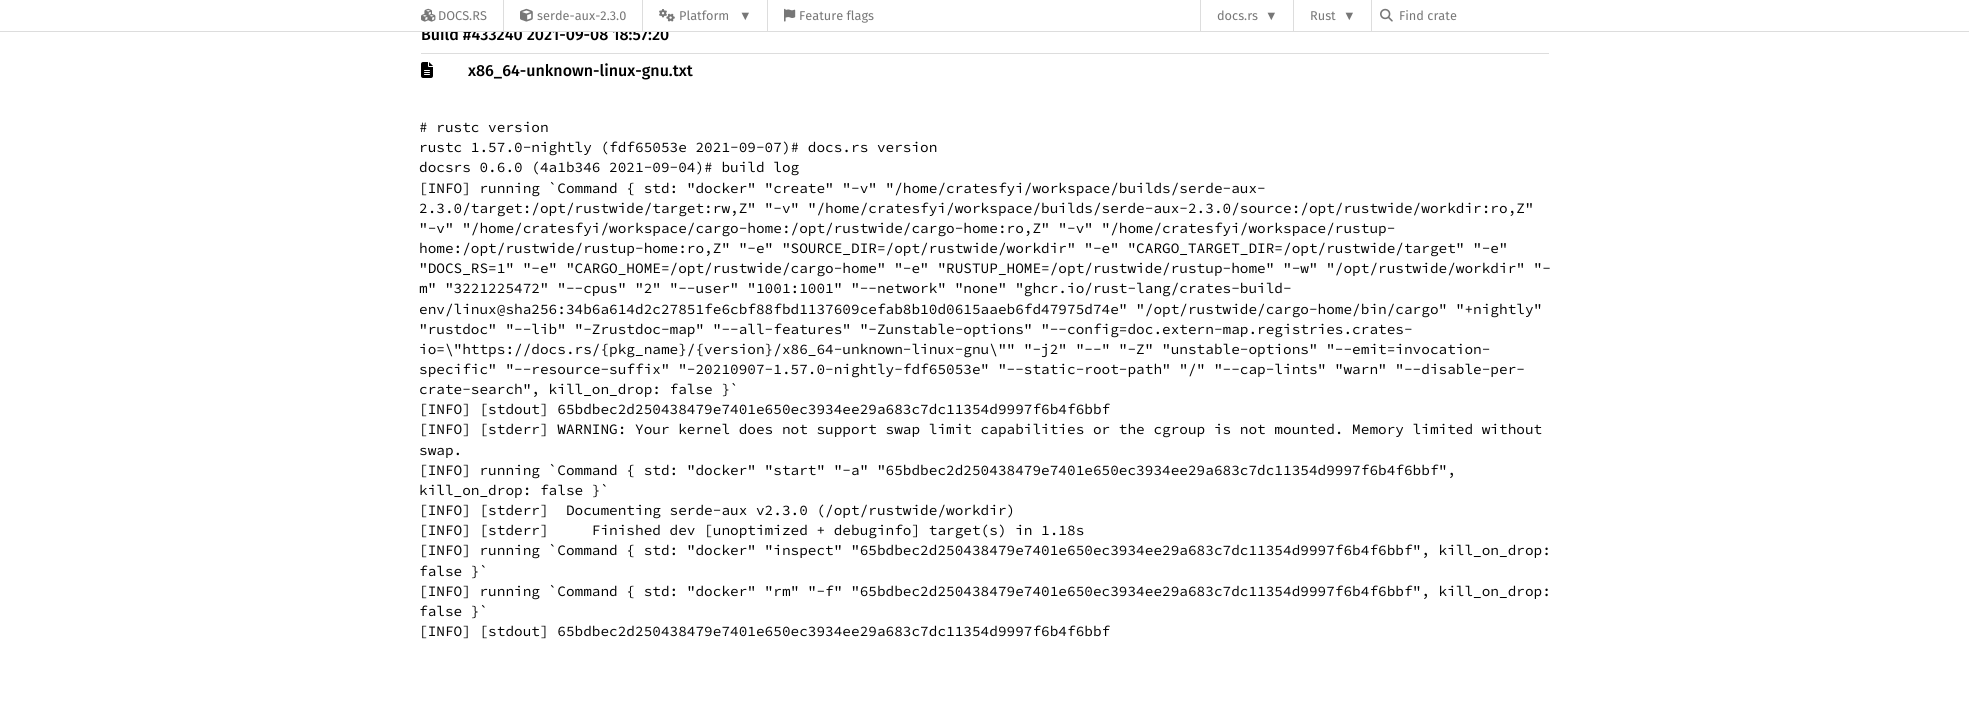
#include <cairo.h>
#include <math.h>
#include <stddef.h>


static void picture(cairo_t *cr, const char *path, double x, double y, double w, double h) {
    cairo_surface_t *image = cairo_image_surface_create_from_png(path);
    cairo_save(cr);
    cairo_set_source_surface(cr, image, x, y);
    cairo_rectangle(cr, x, y, w, h);
    cairo_fill(cr);
    cairo_restore(cr);
    cairo_surface_destroy(image);
}

int main(void) {
    cairo_surface_t *surface = cairo_image_surface_create(CAIRO_FORMAT_RGB24, 1969, 720);
    cairo_t *cr = cairo_create(surface);
    cairo_font_options_t *options = cairo_font_options_create();
    cairo_font_options_set_hint_metrics(options, CAIRO_HINT_METRICS_OFF);
    cairo_font_options_set_hint_style(options, CAIRO_HINT_STYLE_NONE);
    cairo_set_font_options(cr, options);
    cairo_set_miter_limit(cr, 4);
    cairo_set_source_rgb(cr, 1, 1, 1);
    cairo_paint(cr);
    cairo_select_font_face(cr, "Fira Sans Medium", CAIRO_FONT_SLANT_NORMAL, CAIRO_FONT_WEIGHT_NORMAL);
    cairo_set_font_size(cr, 16);
    cairo_set_source_rgb(cr, 0, 0, 0);
    cairo_move_to(cr, 421, 40);
    cairo_show_text(cr, "Build #433240 2021-09-08 18:57:20");
    cairo_set_source_rgb(cr, 1, 1, 1);
    cairo_rectangle(cr, 421, 27, 247, 4);
    cairo_fill(cr);
    cairo_set_source_rgb(cr, 0.867, 0.867, 0.867);
    cairo_rectangle(cr, 0, 31, 1969, 1);
    cairo_fill(cr);
    picture(cr, "img1.png", 421, 8, 15, 14);
    cairo_select_font_face(cr, "Fira Sans", CAIRO_FONT_SLANT_NORMAL, CAIRO_FONT_WEIGHT_NORMAL);
    cairo_set_font_size(cr, 12.75);
    cairo_set_source_rgb(cr, 0.467, 0.467, 0.467);
    cairo_move_to(cr, 438, 20);
    cairo_show_text(cr, "DOCS.RS");
    cairo_set_source_rgb(cr, 0.867, 0.867, 0.867);
    cairo_rectangle(cr, 503, 0, 1, 31);
    cairo_fill(cr);
    picture(cr, "img2.png", 520, 8, 13, 14);
    cairo_set_source_rgb(cr, 0.467, 0.467, 0.467);
    cairo_move_to(cr, 537, 20);
    cairo_show_text(cr, "serde-aux-2.3.0");
    cairo_set_source_rgb(cr, 0.867, 0.867, 0.867);
    cairo_rectangle(cr, 642, 0, 1, 31);
    cairo_fill(cr);
    picture(cr, "img3.png", 659, 9, 16, 13);
    cairo_set_source_rgb(cr, 0.467, 0.467, 0.467);
    cairo_move_to(cr, 679, 20);
    cairo_show_text(cr, "Platform");
    cairo_select_font_face(cr, "Liberation Sans", CAIRO_FONT_SLANT_NORMAL, CAIRO_FONT_WEIGHT_NORMAL);
    cairo_move_to(cr, 739, 20);
    cairo_show_text(cr, "▼");
    cairo_set_source_rgb(cr, 0.867, 0.867, 0.867);
    cairo_rectangle(cr, 767, 0, 1, 31);
    cairo_fill(cr);
    picture(cr, "img4.png", 784, 8, 12, 14);
    cairo_select_font_face(cr, "Fira Sans", CAIRO_FONT_SLANT_NORMAL, CAIRO_FONT_WEIGHT_NORMAL);
    cairo_set_source_rgb(cr, 0.467, 0.467, 0.467);
    cairo_move_to(cr, 799, 20);
    cairo_show_text(cr, "Feature flags");
    cairo_set_source_rgb(cr, 0.867, 0.867, 0.867);
    cairo_rectangle(cr, 1200, 0, 1, 31);
    cairo_fill(cr);
    cairo_set_source_rgb(cr, 0.467, 0.467, 0.467);
    cairo_move_to(cr, 1217, 20);
    cairo_show_text(cr, "docs.rs");
    cairo_select_font_face(cr, "Liberation Sans", CAIRO_FONT_SLANT_NORMAL, CAIRO_FONT_WEIGHT_NORMAL);
    cairo_move_to(cr, 1265, 20);
    cairo_show_text(cr, "▼");
    cairo_set_source_rgb(cr, 0.867, 0.867, 0.867);
    cairo_rectangle(cr, 1293, 0, 1, 31);
    cairo_fill(cr);
    cairo_select_font_face(cr, "Fira Sans", CAIRO_FONT_SLANT_NORMAL, CAIRO_FONT_WEIGHT_NORMAL);
    cairo_set_source_rgb(cr, 0.467, 0.467, 0.467);
    cairo_move_to(cr, 1310, 20);
    cairo_show_text(cr, "Rust");
    cairo_select_font_face(cr, "Liberation Sans", CAIRO_FONT_SLANT_NORMAL, CAIRO_FONT_WEIGHT_NORMAL);
    cairo_move_to(cr, 1343, 20);
    cairo_show_text(cr, "▼");
    cairo_set_source_rgb(cr, 0.867, 0.867, 0.867);
    cairo_rectangle(cr, 1371, 0, 1, 31);
    cairo_fill(cr);
    picture(cr, "img5.png", 1380, 8, 13, 14);
    cairo_select_font_face(cr, "Fira Sans", CAIRO_FONT_SLANT_NORMAL, CAIRO_FONT_WEIGHT_NORMAL);
    cairo_set_source_rgb(cr, 0.467, 0.467, 0.467);
    cairo_move_to(cr, 1399, 20);
    cairo_show_text(cr, "Find crate");
    cairo_set_source_rgb(cr, 0.867, 0.867, 0.867);
    cairo_rectangle(cr, 421, 53, 1128, 1);
    cairo_fill(cr);
    picture(cr, "img6.png", 421, 62, 12, 16);
    cairo_select_font_face(cr, "Fira Sans Medium", CAIRO_FONT_SLANT_NORMAL, CAIRO_FONT_WEIGHT_NORMAL);
    cairo_set_font_size(cr, 16);
    cairo_set_source_rgb(cr, 0, 0, 0);
    cairo_move_to(cr, 468, 76);
    cairo_show_text(cr, "x86_64-unknown-linux-gnu.txt");
    cairo_select_font_face(cr, "Source Code Pro", CAIRO_FONT_SLANT_NORMAL, CAIRO_FONT_WEIGHT_NORMAL);
    cairo_set_font_size(cr, 14.4);
    cairo_move_to(cr, 419, 132);
    cairo_show_text(cr, "# rustc version");
    cairo_move_to(cr, 419, 152);
    cairo_show_text(cr, "rustc 1.57.0-nightly (fdf65053e 2021-09-07)# docs.rs version");
    cairo_move_to(cr, 419, 172);
    cairo_show_text(cr, "docsrs 0.6.0 (4a1b346 2021-09-04)# build log");
    cairo_move_to(cr, 419, 193);
    cairo_show_text(cr, "[INFO] running `Command { std: \"docker\" \"create\" \"-v\" \"/home/cratesfyi/workspace/builds/serde-aux-");
    cairo_move_to(cr, 419, 213);
    cairo_show_text(cr, "2.3.0/target:/opt/rustwide/target:rw,Z\" \"-v\" \"/home/cratesfyi/workspace/builds/serde-aux-2.3.0/source:/opt/rustwide/workdir:ro,Z\"");
    cairo_move_to(cr, 419, 233);
    cairo_show_text(cr, "\"-v\" \"/home/cratesfyi/workspace/cargo-home:/opt/rustwide/cargo-home:ro,Z\" \"-v\" \"/home/cratesfyi/workspace/rustup-");
    cairo_move_to(cr, 419, 253);
    cairo_show_text(cr, "home:/opt/rustwide/rustup-home:ro,Z\" \"-e\" \"SOURCE_DIR=/opt/rustwide/workdir\" \"-e\" \"CARGO_TARGET_DIR=/opt/rustwide/target\" \"-e\"");
    cairo_move_to(cr, 419, 273);
    cairo_show_text(cr, "\"DOCS_RS=1\" \"-e\" \"CARGO_HOME=/opt/rustwide/cargo-home\" \"-e\" \"RUSTUP_HOME=/opt/rustwide/rustup-home\" \"-w\" \"/opt/rustwide/workdir\" \"-");
    cairo_move_to(cr, 419, 293);
    cairo_show_text(cr, "m\" \"3221225472\" \"--cpus\" \"2\" \"--user\" \"1001:1001\" \"--network\" \"none\" \"ghcr.io/rust-lang/crates-build-");
    cairo_move_to(cr, 419, 314);
    cairo_show_text(cr, "env/linux@sha256:34b6a614d2c27851fe6cbf88fbd1137609cefab8b10d0615aaeb6fd47975d74e\" \"/opt/rustwide/cargo-home/bin/cargo\" \"+nightly\"");
    cairo_move_to(cr, 419, 334);
    cairo_show_text(cr, "\"rustdoc\" \"--lib\" \"-Zrustdoc-map\" \"--all-features\" \"-Zunstable-options\" \"--config=doc.extern-map.registries.crates-");
    cairo_move_to(cr, 419, 354);
    cairo_show_text(cr, "io=\\\"https://docs.rs/{pkg_name}/{version}/x86_64-unknown-linux-gnu\\\"\" \"-j2\" \"--\" \"-Z\" \"unstable-options\" \"--emit=invocation-");
    cairo_move_to(cr, 419, 374);
    cairo_show_text(cr, "specific\" \"--resource-suffix\" \"-20210907-1.57.0-nightly-fdf65053e\" \"--static-root-path\" \"/\" \"--cap-lints\" \"warn\" \"--disable-per-");
    cairo_move_to(cr, 419, 394);
    cairo_show_text(cr, "crate-search\", kill_on_drop: false }`");
    cairo_move_to(cr, 419, 414);
    cairo_show_text(cr, "[INFO] [stdout] 65bdbec2d250438479e7401e650ec3934ee29a683c7dc11354d9997f6b4f6bbf");
    cairo_move_to(cr, 419, 434);
    cairo_show_text(cr, "[INFO] [stderr] WARNING: Your kernel does not support swap limit capabilities or the cgroup is not mounted. Memory limited without");
    cairo_move_to(cr, 419, 455);
    cairo_show_text(cr, "swap.");
    cairo_move_to(cr, 419, 475);
    cairo_show_text(cr, "[INFO] running `Command { std: \"docker\" \"start\" \"-a\" \"65bdbec2d250438479e7401e650ec3934ee29a683c7dc11354d9997f6b4f6bbf\",");
    cairo_move_to(cr, 419, 495);
    cairo_show_text(cr, "kill_on_drop: false }`");
    cairo_move_to(cr, 419, 515);
    cairo_show_text(cr, "[INFO] [stderr]  Documenting serde-aux v2.3.0 (/opt/rustwide/workdir)");
    cairo_move_to(cr, 419, 535);
    cairo_show_text(cr, "[INFO] [stderr]     Finished dev [unoptimized + debuginfo] target(s) in 1.18s");
    cairo_move_to(cr, 419, 555);
    cairo_show_text(cr, "[INFO] running `Command { std: \"docker\" \"inspect\" \"65bdbec2d250438479e7401e650ec3934ee29a683c7dc11354d9997f6b4f6bbf\", kill_on_drop:");
    cairo_move_to(cr, 419, 576);
    cairo_show_text(cr, "false }`");
    cairo_move_to(cr, 419, 596);
    cairo_show_text(cr, "[INFO] running `Command { std: \"docker\" \"rm\" \"-f\" \"65bdbec2d250438479e7401e650ec3934ee29a683c7dc11354d9997f6b4f6bbf\", kill_on_drop:");
    cairo_move_to(cr, 419, 616);
    cairo_show_text(cr, "false }`");
    cairo_move_to(cr, 419, 636);
    cairo_show_text(cr, "[INFO] [stdout] 65bdbec2d250438479e7401e650ec3934ee29a683c7dc11354d9997f6b4f6bbf");
    cairo_surface_write_to_png(surface, "page.png");
    cairo_font_options_destroy(options);
    cairo_destroy(cr);
    cairo_surface_destroy(surface);
    return 0;
}
